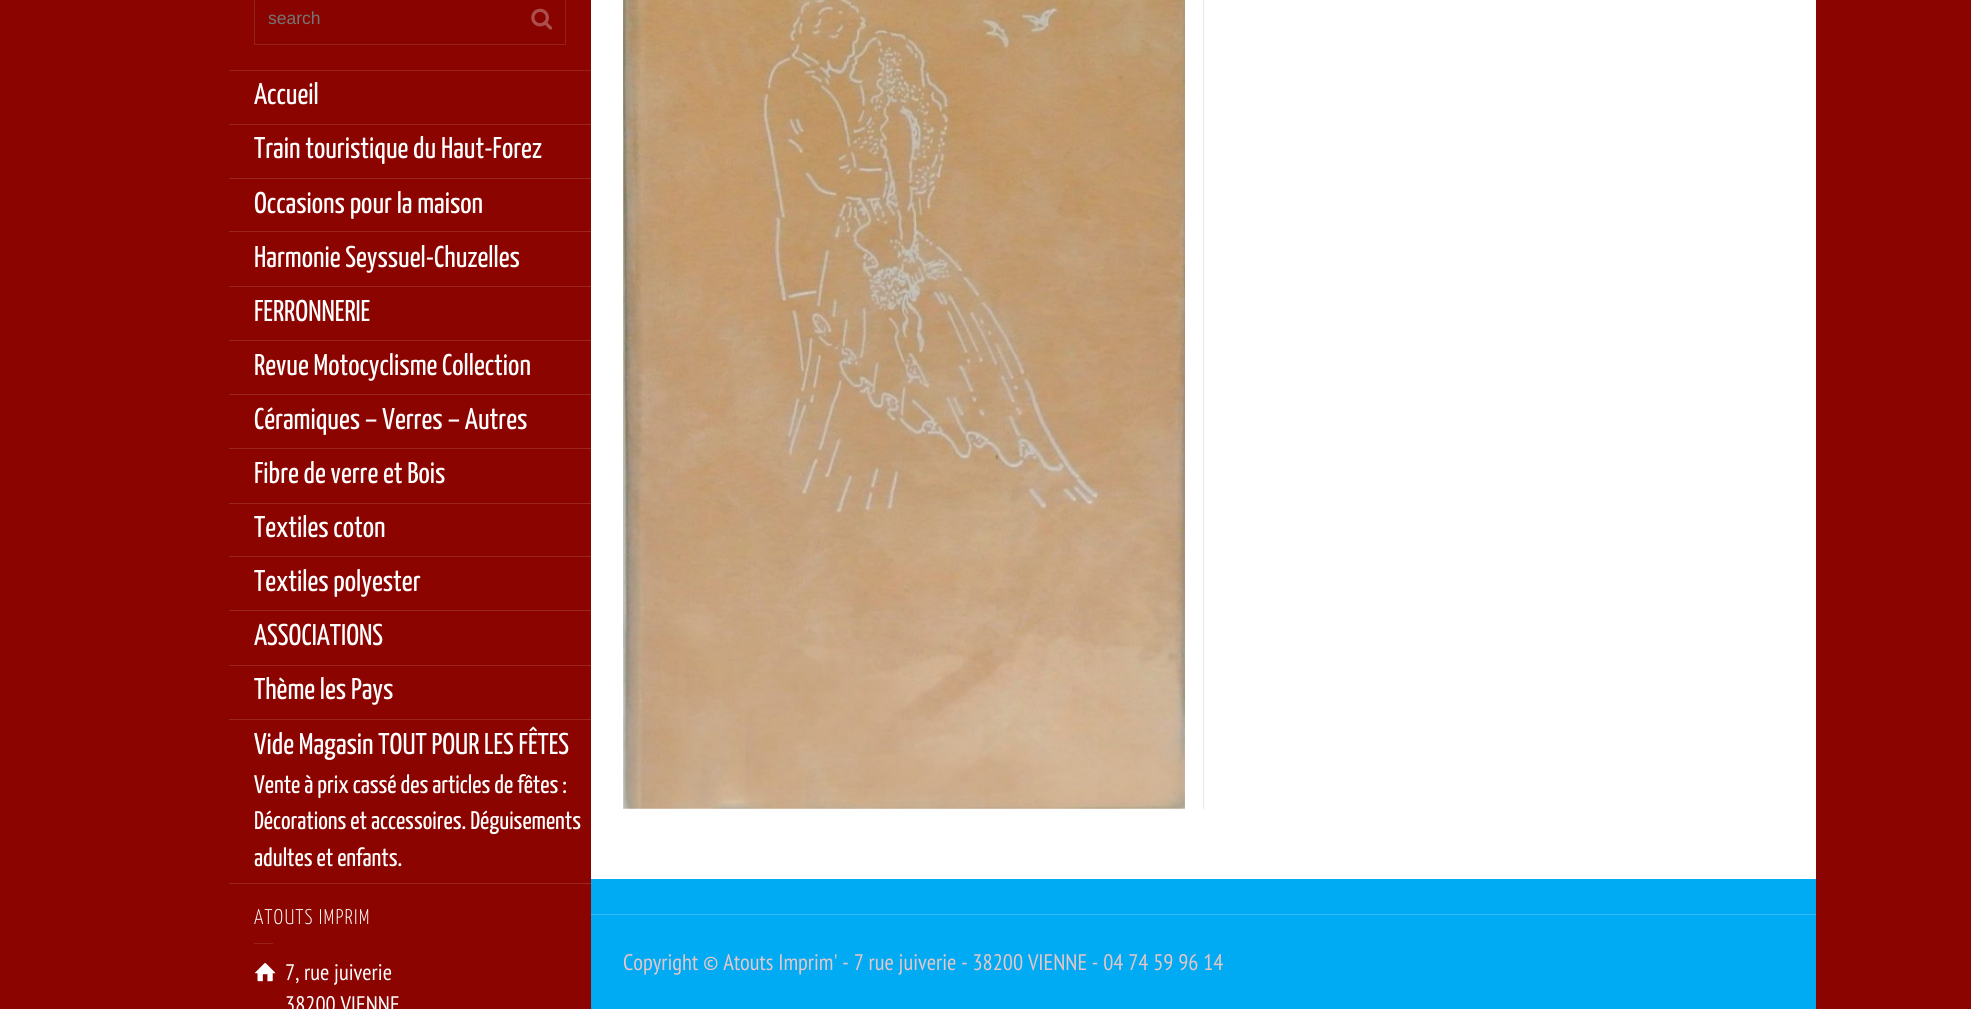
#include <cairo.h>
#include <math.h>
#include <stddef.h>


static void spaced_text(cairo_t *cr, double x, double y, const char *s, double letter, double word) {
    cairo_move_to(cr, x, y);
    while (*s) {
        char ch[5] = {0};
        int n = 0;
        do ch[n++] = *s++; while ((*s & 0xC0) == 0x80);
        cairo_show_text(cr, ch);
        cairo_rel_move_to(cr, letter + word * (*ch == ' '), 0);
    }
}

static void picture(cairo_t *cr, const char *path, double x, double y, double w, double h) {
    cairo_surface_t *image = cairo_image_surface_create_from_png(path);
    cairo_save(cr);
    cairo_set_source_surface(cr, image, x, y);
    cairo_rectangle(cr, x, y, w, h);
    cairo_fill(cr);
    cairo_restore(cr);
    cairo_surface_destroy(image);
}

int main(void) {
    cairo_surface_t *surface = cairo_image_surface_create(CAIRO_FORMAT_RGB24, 1971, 1009);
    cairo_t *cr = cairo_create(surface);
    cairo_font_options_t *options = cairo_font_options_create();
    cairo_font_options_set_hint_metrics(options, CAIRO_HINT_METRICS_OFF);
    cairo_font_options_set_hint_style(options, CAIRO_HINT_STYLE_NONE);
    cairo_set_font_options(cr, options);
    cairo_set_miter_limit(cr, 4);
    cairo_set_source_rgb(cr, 0.549, 0.016, 0);
    cairo_paint(cr);
    cairo_set_source_rgb(cr, 0.6, 0.125, 0.11);
    cairo_rectangle(cr, 229, 70, 362, 1);
    cairo_fill(cr);
    cairo_set_source_rgb(cr, 0.537, 0.016, 0);
    cairo_rectangle(cr, 254.5, -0.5, 311, 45);
    cairo_fill_preserve(cr);
    cairo_set_source_rgb(cr, 0.588, 0.125, 0.11);
    cairo_set_line_width(cr, 1);
    cairo_stroke(cr);
    cairo_select_font_face(cr, "Liberation Sans", CAIRO_FONT_SLANT_NORMAL, CAIRO_FONT_WEIGHT_NORMAL);
    cairo_set_font_size(cr, 17.5);
    cairo_set_source_rgb(cr, 0.459, 0.459, 0.459);
    cairo_move_to(cr, 268, 24);
    cairo_show_text(cr, "search");
    picture(cr, "img1.png", 531, 8, 21, 22);
    cairo_set_source_rgb(cr, 0.608, 0.145, 0.129);
    cairo_rectangle(cr, 229, 124, 362, 1);
    cairo_fill(cr);
    cairo_select_font_face(cr, "Yanone Kaffeesatz", CAIRO_FONT_SLANT_NORMAL, CAIRO_FONT_WEIGHT_NORMAL);
    cairo_set_font_size(cr, 30);
    cairo_set_source_rgb(cr, 1, 1, 1);
    cairo_move_to(cr, 254, 104);
    cairo_show_text(cr, "Accueil");
    cairo_set_source_rgb(cr, 0.608, 0.145, 0.129);
    cairo_rectangle(cr, 229, 178, 362, 1);
    cairo_fill(cr);
    cairo_set_source_rgb(cr, 1, 1, 1);
    cairo_move_to(cr, 254, 158);
    cairo_show_text(cr, "Train touristique du Haut-Forez");
    cairo_set_source_rgb(cr, 0.608, 0.145, 0.129);
    cairo_rectangle(cr, 229, 231, 362, 1);
    cairo_fill(cr);
    cairo_set_source_rgb(cr, 1, 1, 1);
    cairo_move_to(cr, 254, 213);
    cairo_show_text(cr, "Occasions pour la maison");
    cairo_set_source_rgb(cr, 0.608, 0.145, 0.129);
    cairo_rectangle(cr, 229, 286, 362, 1);
    cairo_fill(cr);
    cairo_set_source_rgb(cr, 1, 1, 1);
    cairo_move_to(cr, 254, 267);
    cairo_show_text(cr, "Harmonie Seyssuel-Chuzelles");
    cairo_set_source_rgb(cr, 0.608, 0.145, 0.129);
    cairo_rectangle(cr, 229, 340, 362, 1);
    cairo_fill(cr);
    cairo_set_source_rgb(cr, 1, 1, 1);
    cairo_move_to(cr, 254, 321);
    cairo_show_text(cr, "FERRONNERIE");
    cairo_set_source_rgb(cr, 0.608, 0.145, 0.129);
    cairo_rectangle(cr, 229, 394, 362, 1);
    cairo_fill(cr);
    cairo_set_source_rgb(cr, 1, 1, 1);
    cairo_move_to(cr, 254, 375);
    cairo_show_text(cr, "Revue Motocyclisme Collection");
    cairo_set_source_rgb(cr, 0.608, 0.145, 0.129);
    cairo_rectangle(cr, 229, 448, 362, 1);
    cairo_fill(cr);
    cairo_set_source_rgb(cr, 1, 1, 1);
    cairo_move_to(cr, 254, 429);
    cairo_show_text(cr, "Céramiques – Verres – Autres");
    cairo_set_source_rgb(cr, 0.608, 0.145, 0.129);
    cairo_rectangle(cr, 229, 503, 362, 1);
    cairo_fill(cr);
    cairo_set_source_rgb(cr, 1, 1, 1);
    cairo_move_to(cr, 254, 483);
    cairo_show_text(cr, "Fibre de verre et Bois");
    cairo_set_source_rgb(cr, 0.608, 0.145, 0.129);
    cairo_rectangle(cr, 229, 556, 362, 1);
    cairo_fill(cr);
    cairo_set_source_rgb(cr, 1, 1, 1);
    cairo_move_to(cr, 254, 537);
    cairo_show_text(cr, "Textiles coton");
    cairo_set_source_rgb(cr, 0.608, 0.145, 0.129);
    cairo_rectangle(cr, 229, 610, 362, 1);
    cairo_fill(cr);
    cairo_set_source_rgb(cr, 1, 1, 1);
    cairo_move_to(cr, 254, 591);
    cairo_show_text(cr, "Textiles polyester");
    cairo_set_source_rgb(cr, 0.608, 0.145, 0.129);
    cairo_rectangle(cr, 229, 665, 362, 1);
    cairo_fill(cr);
    cairo_set_source_rgb(cr, 1, 1, 1);
    cairo_move_to(cr, 254, 645);
    cairo_show_text(cr, "ASSOCIATIONS");
    cairo_set_source_rgb(cr, 0.608, 0.145, 0.129);
    cairo_rectangle(cr, 229, 719, 362, 1);
    cairo_fill(cr);
    cairo_set_source_rgb(cr, 1, 1, 1);
    cairo_move_to(cr, 254, 699);
    cairo_show_text(cr, "Thème les Pays");
    cairo_set_source_rgb(cr, 0.608, 0.145, 0.129);
    cairo_rectangle(cr, 229, 883, 362, 1);
    cairo_fill(cr);
    cairo_set_source_rgb(cr, 1, 1, 1);
    cairo_move_to(cr, 254, 754);
    cairo_show_text(cr, "Vide Magasin TOUT POUR LES FÊTES");
    cairo_set_font_size(cr, 25.5);
    cairo_move_to(cr, 254, 793);
    cairo_show_text(cr, "Vente à prix cassé des articles de fêtes :");
    cairo_move_to(cr, 254, 829);
    cairo_show_text(cr, "Décorations et accessoires. Déguisements");
    cairo_move_to(cr, 254, 866);
    cairo_show_text(cr, "adultes et enfants.");
    cairo_select_font_face(cr, "Yanone Kaffeesatz Light", CAIRO_FONT_SLANT_NORMAL, CAIRO_FONT_WEIGHT_NORMAL);
    cairo_set_font_size(cr, 21.25);
    spaced_text(cr, 254, 924, "ATOUTS IMPRIM", 1.25, 0);
    cairo_set_source_rgb(cr, 0.6, 0.125, 0.11);
    cairo_rectangle(cr, 254, 943, 19, 1);
    cairo_fill(cr);
    picture(cr, "img2.png", 255, 963, 21, 19);
    cairo_select_font_face(cr, "PT Sans Narrow", CAIRO_FONT_SLANT_NORMAL, CAIRO_FONT_WEIGHT_NORMAL);
    cairo_set_font_size(cr, 22.5);
    cairo_set_source_rgb(cr, 1, 1, 1);
    cairo_move_to(cr, 285, 980);
    cairo_show_text(cr, "7, rue juiverie");
    cairo_move_to(cr, 285, 1012);
    cairo_show_text(cr, "38200 VIENNE");
    cairo_rectangle(cr, 591, 0, 1225, 879);
    cairo_fill(cr);
    picture(cr, "img3.png", 623, 0, 562, 809);
    cairo_set_source_rgb(cr, 0.91, 0.91, 0.91);
    cairo_rectangle(cr, 1203, 0, 1, 809);
    cairo_fill(cr);
    cairo_set_source_rgb(cr, 0, 0.671, 0.957);
    cairo_rectangle(cr, 591, 879, 1225, 35);
    cairo_fill(cr);
    cairo_rectangle(cr, 591, 915, 1225, 94);
    cairo_fill(cr);
    cairo_set_source_rgb(cr, 0.2, 0.737, 0.965);
    cairo_rectangle(cr, 591, 914, 1225, 1);
    cairo_fill(cr);
    cairo_set_source_rgb(cr, 0.902, 0.776, 0.776);
    cairo_move_to(cr, 623, 970);
    cairo_show_text(cr, "Copyright © Atouts Imprim' - 7 rue juiverie - 38200 VIENNE - 04 74 59 96 14");
    cairo_surface_write_to_png(surface, "page.png");
    cairo_font_options_destroy(options);
    cairo_destroy(cr);
    cairo_surface_destroy(surface);
    return 0;
}
